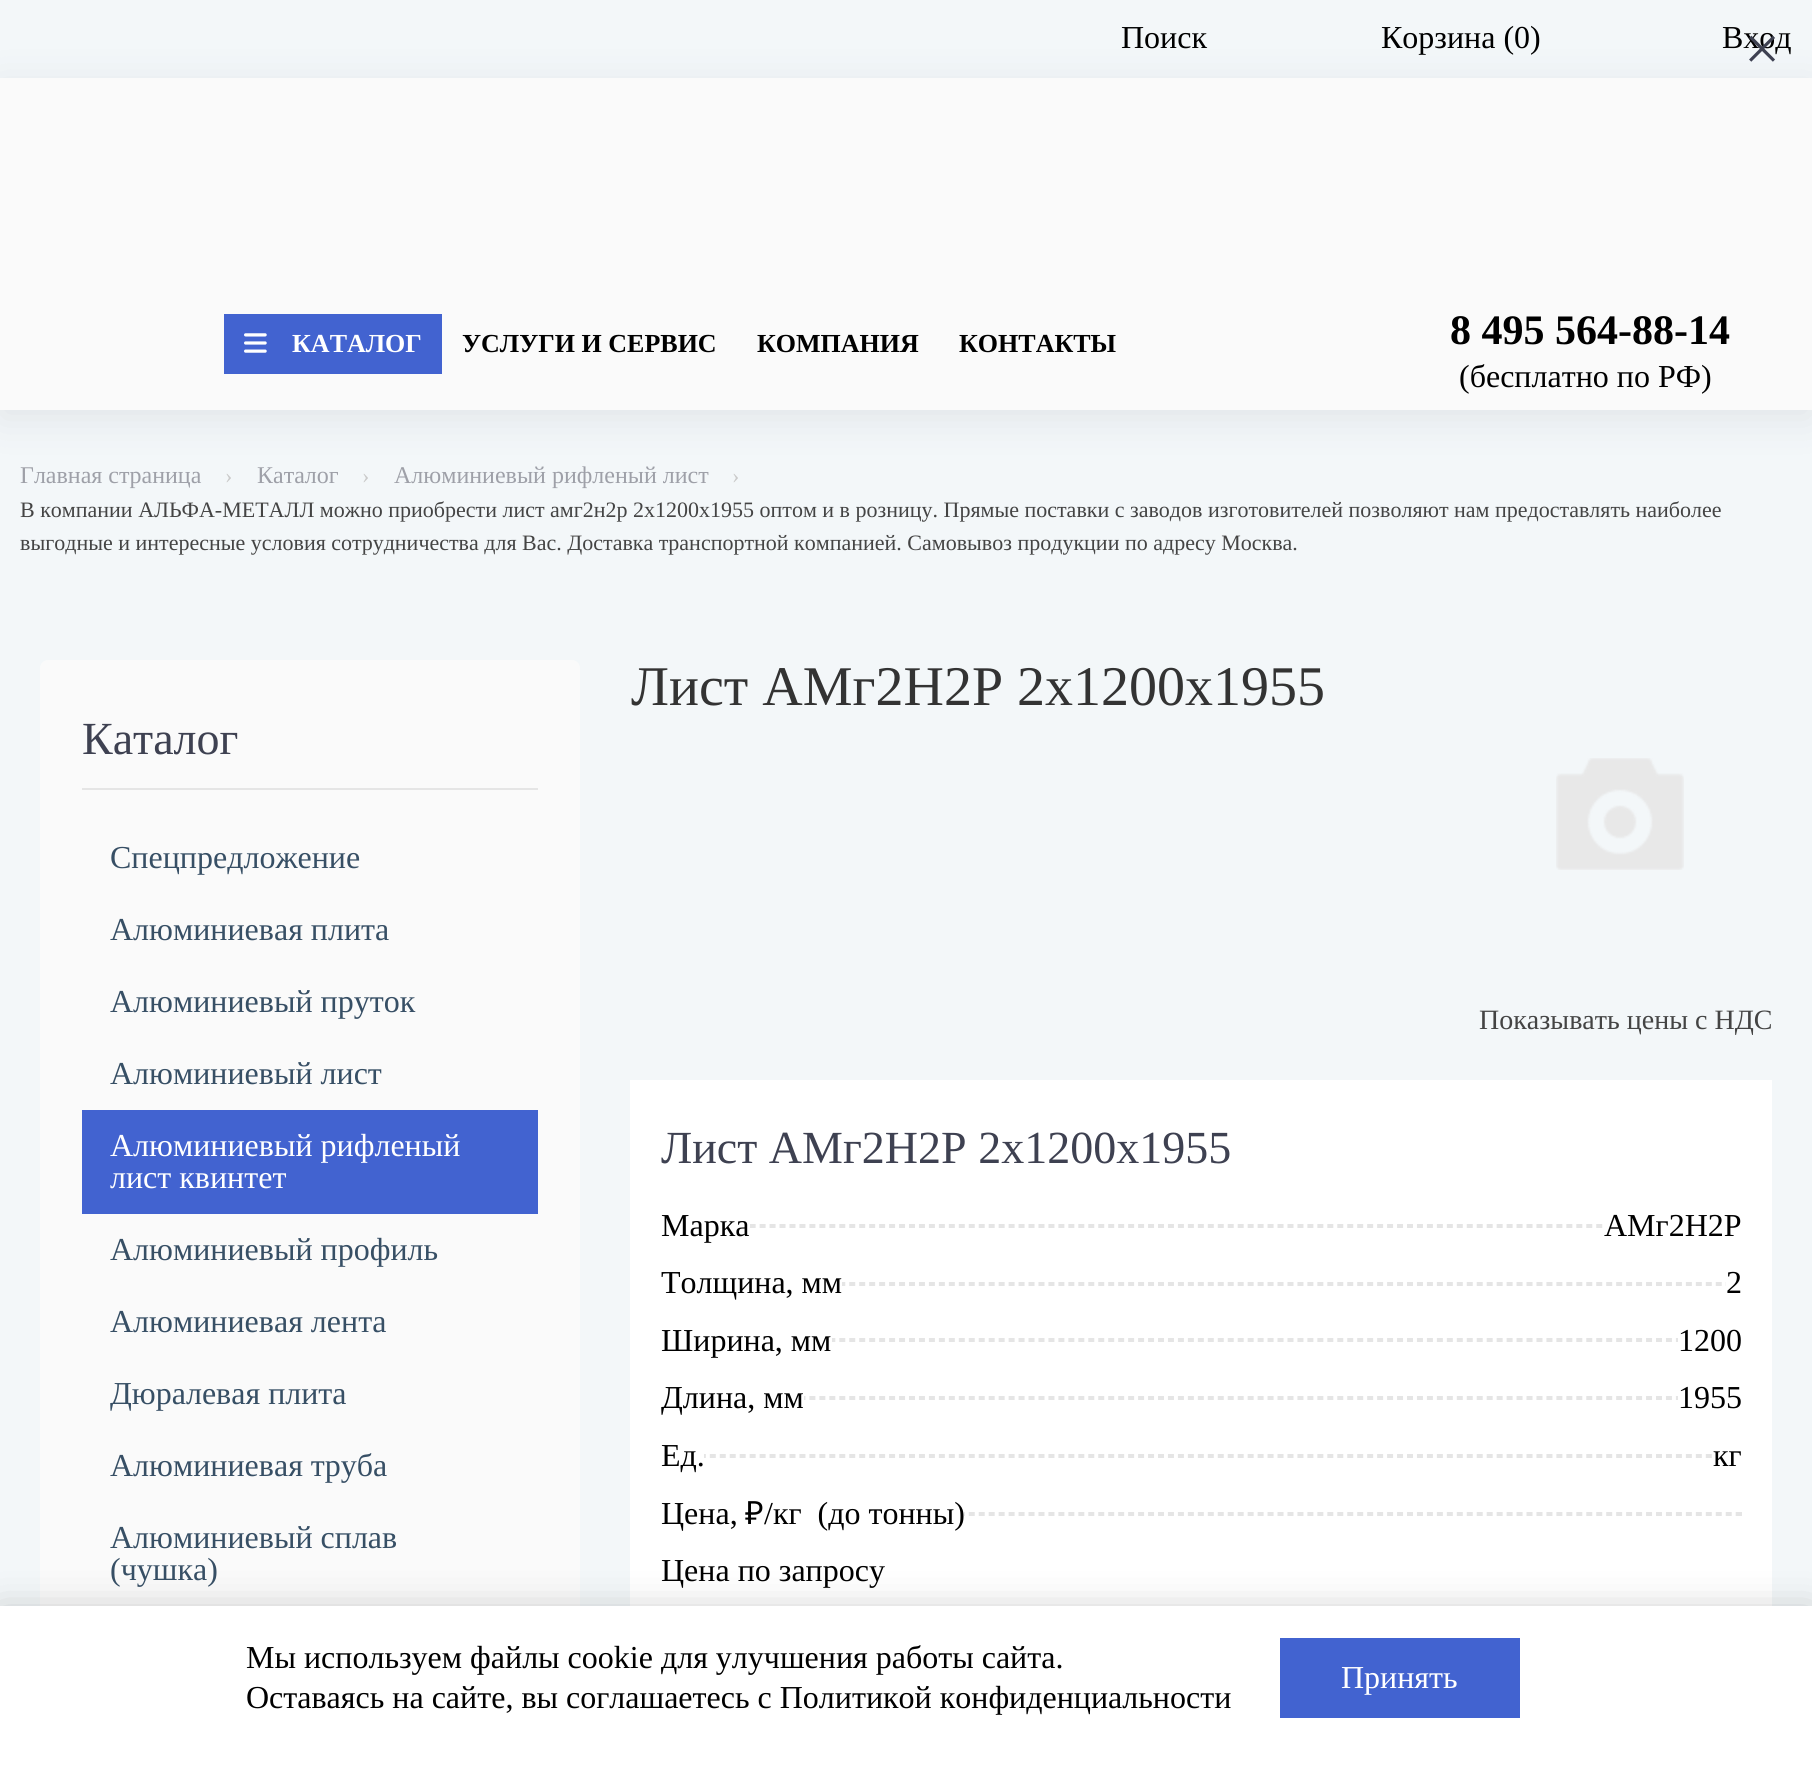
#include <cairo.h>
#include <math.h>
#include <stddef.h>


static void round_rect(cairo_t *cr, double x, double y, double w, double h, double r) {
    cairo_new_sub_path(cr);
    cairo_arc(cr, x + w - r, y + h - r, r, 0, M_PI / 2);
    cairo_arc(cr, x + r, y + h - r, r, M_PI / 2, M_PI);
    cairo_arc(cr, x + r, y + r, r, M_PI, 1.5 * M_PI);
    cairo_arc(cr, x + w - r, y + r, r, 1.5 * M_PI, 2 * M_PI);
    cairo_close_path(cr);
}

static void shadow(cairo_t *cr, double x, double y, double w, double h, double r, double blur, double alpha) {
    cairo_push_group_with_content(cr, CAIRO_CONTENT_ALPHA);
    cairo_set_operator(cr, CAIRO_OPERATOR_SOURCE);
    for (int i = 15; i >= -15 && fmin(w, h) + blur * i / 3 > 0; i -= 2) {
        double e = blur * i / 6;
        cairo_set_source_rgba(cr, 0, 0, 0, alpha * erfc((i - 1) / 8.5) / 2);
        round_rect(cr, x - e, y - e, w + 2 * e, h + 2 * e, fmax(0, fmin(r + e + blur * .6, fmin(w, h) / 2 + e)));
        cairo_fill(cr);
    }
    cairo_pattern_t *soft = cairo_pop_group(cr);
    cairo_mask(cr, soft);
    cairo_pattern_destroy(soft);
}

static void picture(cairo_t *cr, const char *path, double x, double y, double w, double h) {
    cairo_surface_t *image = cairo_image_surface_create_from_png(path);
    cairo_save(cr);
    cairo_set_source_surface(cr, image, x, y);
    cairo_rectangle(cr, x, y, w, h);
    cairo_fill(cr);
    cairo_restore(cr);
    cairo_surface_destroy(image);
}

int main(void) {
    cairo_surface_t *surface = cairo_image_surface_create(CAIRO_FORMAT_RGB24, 1812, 1773);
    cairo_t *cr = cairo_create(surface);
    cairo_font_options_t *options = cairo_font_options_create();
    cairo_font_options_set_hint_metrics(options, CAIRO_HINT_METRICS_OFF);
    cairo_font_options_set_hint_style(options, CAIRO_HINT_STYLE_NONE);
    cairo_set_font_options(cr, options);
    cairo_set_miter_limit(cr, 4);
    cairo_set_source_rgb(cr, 0.953, 0.965, 0.973);
    cairo_paint(cr);
    cairo_select_font_face(cr, "Liberation Serif", CAIRO_FONT_SLANT_NORMAL, CAIRO_FONT_WEIGHT_NORMAL);
    cairo_set_font_size(cr, 32);
    cairo_set_source_rgb(cr, 0, 0, 0);
    cairo_move_to(cr, 1121, 48);
    cairo_show_text(cr, "Поиск");
    cairo_move_to(cr, 1381, 48);
    cairo_show_text(cr, "Корзина (0)");
    cairo_move_to(cr, 1722, 48);
    cairo_show_text(cr, "Вход");
    cairo_set_font_size(cr, 64);
    cairo_set_source_rgb(cr, 0.243, 0.255, 0.318);
    cairo_move_to(cr, 1744, 70);
    cairo_show_text(cr, "×");
    cairo_set_source_rgb(cr, 0.98, 0.98, 0.98);
    round_rect(cr, 40, 660, 540, 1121, 8);
    cairo_fill(cr);
    cairo_set_font_size(cr, 46);
    cairo_set_source_rgb(cr, 0.243, 0.255, 0.318);
    cairo_move_to(cr, 82, 754);
    cairo_show_text(cr, "Каталог");
    cairo_set_source_rgb(cr, 0.898, 0.898, 0.898);
    cairo_rectangle(cr, 82, 788, 456, 2);
    cairo_fill(cr);
    cairo_set_font_size(cr, 32);
    cairo_set_source_rgb(cr, 0.216, 0.31, 0.396);
    cairo_move_to(cr, 110, 868);
    cairo_show_text(cr, "Спецпредложение");
    cairo_move_to(cr, 110, 940);
    cairo_show_text(cr, "Алюминиевая плита");
    cairo_move_to(cr, 110, 1012);
    cairo_show_text(cr, "Алюминиевый пруток");
    cairo_move_to(cr, 110, 1084);
    cairo_show_text(cr, "Алюминиевый лист");
    cairo_set_source_rgb(cr, 0.259, 0.388, 0.816);
    cairo_rectangle(cr, 82, 1110, 456, 104);
    cairo_fill(cr);
    cairo_set_source_rgb(cr, 1, 1, 1);
    cairo_move_to(cr, 110, 1156);
    cairo_show_text(cr, "Алюминиевый рифленый");
    cairo_move_to(cr, 110, 1188);
    cairo_show_text(cr, "лист квинтет");
    cairo_set_source_rgb(cr, 0.216, 0.31, 0.396);
    cairo_move_to(cr, 110, 1260);
    cairo_show_text(cr, "Алюминиевый профиль");
    cairo_move_to(cr, 110, 1332);
    cairo_show_text(cr, "Алюминиевая лента");
    cairo_move_to(cr, 110, 1404);
    cairo_show_text(cr, "Дюралевая плита");
    cairo_move_to(cr, 110, 1476);
    cairo_show_text(cr, "Алюминиевая труба");
    cairo_move_to(cr, 110, 1548);
    cairo_show_text(cr, "Алюминиевый сплав");
    cairo_move_to(cr, 110, 1580);
    cairo_show_text(cr, "(чушка)");
    cairo_set_font_size(cr, 56);
    cairo_set_source_rgb(cr, 0.2, 0.2, 0.2);
    cairo_move_to(cr, 631, 705);
    cairo_show_text(cr, "Лист АМг2Н2Р 2x1200x1955");
    picture(cr, "img1.png", 1556, 758, 128, 112);
    cairo_set_font_size(cr, 28);
    cairo_set_source_rgb(cr, 0.267, 0.267, 0.267);
    cairo_move_to(cr, 1479, 1029);
    cairo_show_text(cr, "Показывать цены с НДС");
    cairo_set_source_rgb(cr, 1, 1, 1);
    cairo_rectangle(cr, 630, 1080, 1142, 526);
    cairo_fill(cr);
    cairo_set_font_size(cr, 46);
    cairo_set_source_rgb(cr, 0.243, 0.255, 0.318);
    cairo_move_to(cr, 661, 1163);
    cairo_show_text(cr, "Лист АМг2Н2Р 2x1200x1955");
    cairo_new_path(cr);
    cairo_move_to(cr, 660, 1225);
    cairo_line_to(cr, 1742, 1225);
    cairo_set_source_rgb(cr, 0.898, 0.898, 0.898);
    cairo_set_dash(cr, (double[]){6, 3.96}, 2, 0);
    cairo_stroke(cr);
    cairo_new_path(cr);
    cairo_move_to(cr, 660, 1227);
    cairo_line_to(cr, 1742, 1227);
    cairo_stroke(cr);
    cairo_set_source_rgb(cr, 1, 1, 1);
    cairo_rectangle(cr, 660, 1224, 90, 4);
    cairo_fill(cr);
    cairo_set_font_size(cr, 32);
    cairo_set_source_rgb(cr, 0, 0, 0);
    cairo_move_to(cr, 661, 1236);
    cairo_show_text(cr, "Марка");
    cairo_set_source_rgb(cr, 1, 1, 1);
    cairo_rectangle(cr, 1606, 1224, 136, 4);
    cairo_fill(cr);
    cairo_set_source_rgb(cr, 0, 0, 0);
    cairo_move_to(cr, 1604, 1236);
    cairo_show_text(cr, "АМг2Н2Р");
    cairo_new_path(cr);
    cairo_move_to(cr, 660, 1283);
    cairo_line_to(cr, 1742, 1283);
    cairo_set_source_rgb(cr, 0.898, 0.898, 0.898);
    cairo_stroke(cr);
    cairo_new_path(cr);
    cairo_move_to(cr, 660, 1285);
    cairo_line_to(cr, 1742, 1285);
    cairo_stroke(cr);
    cairo_set_source_rgb(cr, 1, 1, 1);
    cairo_rectangle(cr, 660, 1282, 182, 4);
    cairo_fill(cr);
    cairo_set_source_rgb(cr, 0, 0, 0);
    cairo_move_to(cr, 661, 1293);
    cairo_show_text(cr, "Толщина, мм");
    cairo_set_source_rgb(cr, 1, 1, 1);
    cairo_rectangle(cr, 1726, 1282, 16, 4);
    cairo_fill(cr);
    cairo_set_source_rgb(cr, 0, 0, 0);
    cairo_move_to(cr, 1726, 1293);
    cairo_show_text(cr, "2");
    cairo_new_path(cr);
    cairo_move_to(cr, 660, 1339);
    cairo_line_to(cr, 1742, 1339);
    cairo_set_source_rgb(cr, 0.898, 0.898, 0.898);
    cairo_stroke(cr);
    cairo_new_path(cr);
    cairo_move_to(cr, 660, 1341);
    cairo_line_to(cr, 1742, 1341);
    cairo_stroke(cr);
    cairo_set_source_rgb(cr, 1, 1, 1);
    cairo_rectangle(cr, 660, 1338, 172, 4);
    cairo_fill(cr);
    cairo_set_source_rgb(cr, 0, 0, 0);
    cairo_move_to(cr, 661, 1351);
    cairo_show_text(cr, "Ширина, мм");
    cairo_set_source_rgb(cr, 1, 1, 1);
    cairo_rectangle(cr, 1678, 1338, 64, 4);
    cairo_fill(cr);
    cairo_set_source_rgb(cr, 0, 0, 0);
    cairo_move_to(cr, 1678, 1351);
    cairo_show_text(cr, "1200");
    cairo_new_path(cr);
    cairo_move_to(cr, 660, 1397);
    cairo_line_to(cr, 1742, 1397);
    cairo_set_source_rgb(cr, 0.898, 0.898, 0.898);
    cairo_stroke(cr);
    cairo_new_path(cr);
    cairo_move_to(cr, 660, 1399);
    cairo_line_to(cr, 1742, 1399);
    cairo_stroke(cr);
    cairo_set_source_rgb(cr, 1, 1, 1);
    cairo_rectangle(cr, 660, 1396, 144, 4);
    cairo_fill(cr);
    cairo_set_source_rgb(cr, 0, 0, 0);
    cairo_move_to(cr, 661, 1408);
    cairo_show_text(cr, "Длина, мм");
    cairo_set_source_rgb(cr, 1, 1, 1);
    cairo_rectangle(cr, 1678, 1396, 64, 4);
    cairo_fill(cr);
    cairo_set_source_rgb(cr, 0, 0, 0);
    cairo_move_to(cr, 1678, 1408);
    cairo_show_text(cr, "1955");
    cairo_new_path(cr);
    cairo_move_to(cr, 660, 1455);
    cairo_line_to(cr, 1742, 1455);
    cairo_set_source_rgb(cr, 0.898, 0.898, 0.898);
    cairo_stroke(cr);
    cairo_new_path(cr);
    cairo_move_to(cr, 660, 1457);
    cairo_line_to(cr, 1742, 1457);
    cairo_stroke(cr);
    cairo_set_source_rgb(cr, 1, 1, 1);
    cairo_rectangle(cr, 660, 1454, 44, 4);
    cairo_fill(cr);
    cairo_set_source_rgb(cr, 0, 0, 0);
    cairo_move_to(cr, 661, 1466);
    cairo_show_text(cr, "Ед.");
    cairo_set_source_rgb(cr, 1, 1, 1);
    cairo_rectangle(cr, 1715, 1454, 27, 4);
    cairo_fill(cr);
    cairo_set_source_rgb(cr, 0, 0, 0);
    cairo_move_to(cr, 1713, 1466);
    cairo_show_text(cr, "кг");
    cairo_new_path(cr);
    cairo_move_to(cr, 660, 1513);
    cairo_line_to(cr, 1742, 1513);
    cairo_set_source_rgb(cr, 0.898, 0.898, 0.898);
    cairo_stroke(cr);
    cairo_rectangle(cr, 1740, 1512, 2, 4);
    cairo_fill(cr);
    cairo_new_path(cr);
    cairo_move_to(cr, 660, 1515);
    cairo_line_to(cr, 1742, 1515);
    cairo_stroke(cr);
    cairo_set_source_rgb(cr, 1, 1, 1);
    cairo_rectangle(cr, 660, 1512, 304, 4);
    cairo_fill(cr);
    cairo_set_source_rgb(cr, 0, 0, 0);
    cairo_move_to(cr, 661, 1524);
    cairo_show_text(cr, "Цена,");
    cairo_select_font_face(cr, "Noto Sans", CAIRO_FONT_SLANT_NORMAL, CAIRO_FONT_WEIGHT_NORMAL);
    cairo_move_to(cr, 745, 1524);
    cairo_show_text(cr, "₽");
    cairo_select_font_face(cr, "Liberation Serif", CAIRO_FONT_SLANT_NORMAL, CAIRO_FONT_WEIGHT_NORMAL);
    cairo_move_to(cr, 764, 1524);
    cairo_show_text(cr, "/кг  (до тонны)");
    cairo_move_to(cr, 661, 1581);
    cairo_show_text(cr, "Цена по запросу");
    cairo_set_source_rgb(cr, 0.18, 0.212, 0.282);
    shadow(cr, 0, 86, 1812, 332, 0, 20, 0.1);
    cairo_set_source_rgb(cr, 0.98, 0.98, 0.98);
    cairo_rectangle(cr, 0, 78, 1812, 332);
    cairo_fill(cr);
    cairo_set_source_rgb(cr, 0.259, 0.388, 0.816);
    cairo_rectangle(cr, 224, 314, 218, 60);
    cairo_fill(cr);
    picture(cr, "img2.png", 244, 333, 23, 20);
    cairo_select_font_face(cr, "Liberation Serif", CAIRO_FONT_SLANT_NORMAL, CAIRO_FONT_WEIGHT_BOLD);
    cairo_set_font_size(cr, 26);
    cairo_set_source_rgb(cr, 1, 1, 1);
    cairo_move_to(cr, 292, 352);
    cairo_show_text(cr, "КАТАЛОГ");
    cairo_set_source_rgb(cr, 0, 0, 0);
    cairo_move_to(cr, 462, 352);
    cairo_show_text(cr, "УСЛУГИ И СЕРВИС");
    cairo_move_to(cr, 757, 352);
    cairo_show_text(cr, "КОМПАНИЯ");
    cairo_move_to(cr, 959, 352);
    cairo_show_text(cr, "КОНТАКТЫ");
    cairo_set_font_size(cr, 42);
    cairo_move_to(cr, 1450, 344);
    cairo_show_text(cr, "8 495 564-88-14");
    cairo_select_font_face(cr, "Liberation Serif", CAIRO_FONT_SLANT_NORMAL, CAIRO_FONT_WEIGHT_NORMAL);
    cairo_set_font_size(cr, 32);
    cairo_move_to(cr, 1459, 387);
    cairo_show_text(cr, "(бесплатно по РФ)");
    cairo_set_font_size(cr, 24);
    cairo_set_source_rgb(cr, 0.62, 0.627, 0.659);
    cairo_move_to(cr, 20, 483);
    cairo_show_text(cr, "Главная страница");
    cairo_set_font_size(cr, 22);
    cairo_set_source_rgb(cr, 0.792, 0.792, 0.792);
    cairo_move_to(cr, 225, 483);
    cairo_show_text(cr, "›");
    cairo_set_font_size(cr, 24);
    cairo_set_source_rgb(cr, 0.62, 0.627, 0.659);
    cairo_move_to(cr, 257, 483);
    cairo_show_text(cr, "Каталог");
    cairo_set_font_size(cr, 22);
    cairo_set_source_rgb(cr, 0.792, 0.792, 0.792);
    cairo_move_to(cr, 362, 483);
    cairo_show_text(cr, "›");
    cairo_set_font_size(cr, 24);
    cairo_set_source_rgb(cr, 0.62, 0.627, 0.659);
    cairo_move_to(cr, 394, 483);
    cairo_show_text(cr, "Алюминиевый рифленый лист");
    cairo_set_font_size(cr, 22);
    cairo_set_source_rgb(cr, 0.792, 0.792, 0.792);
    cairo_move_to(cr, 732, 483);
    cairo_show_text(cr, "›");
    cairo_set_source_rgb(cr, 0.267, 0.267, 0.267);
    cairo_move_to(cr, 20, 517);
    cairo_show_text(cr, "В компании АЛЬФА-МЕТАЛЛ можно приобрести лист амг2н2р 2x1200x1955 оптом и в розницу. Прямые поставки с заводов изготовителей позволяют нам предоставлять наиболее");
    cairo_move_to(cr, 20, 550);
    cairo_show_text(cr, "выгодные и интересные условия сотрудничества для Вас. Доставка транспортной компанией. Самовывоз продукции по адресу Москва.");
    cairo_set_source_rgb(cr, 0, 0, 0);
    shadow(cr, 0, 1614, 1812, 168, 0, 20, 0.25);
    cairo_set_source_rgb(cr, 1, 1, 1);
    cairo_rectangle(cr, 0, 1606, 1812, 167);
    cairo_fill(cr);
    cairo_set_font_size(cr, 32);
    cairo_set_source_rgb(cr, 0, 0, 0);
    cairo_move_to(cr, 246, 1668);
    cairo_show_text(cr, "Мы используем файлы cookie для улучшения работы сайта.");
    cairo_move_to(cr, 246, 1708);
    cairo_show_text(cr, "Оставаясь на сайте, вы соглашаетесь с Политикой конфиденциальности");
    cairo_set_source_rgb(cr, 0.259, 0.388, 0.816);
    cairo_rectangle(cr, 1280, 1638, 240, 80);
    cairo_fill(cr);
    cairo_set_source_rgb(cr, 1, 1, 1);
    cairo_move_to(cr, 1341, 1688);
    cairo_show_text(cr, "Принять");
    cairo_surface_write_to_png(surface, "page.png");
    cairo_font_options_destroy(options);
    cairo_destroy(cr);
    cairo_surface_destroy(surface);
    return 0;
}
